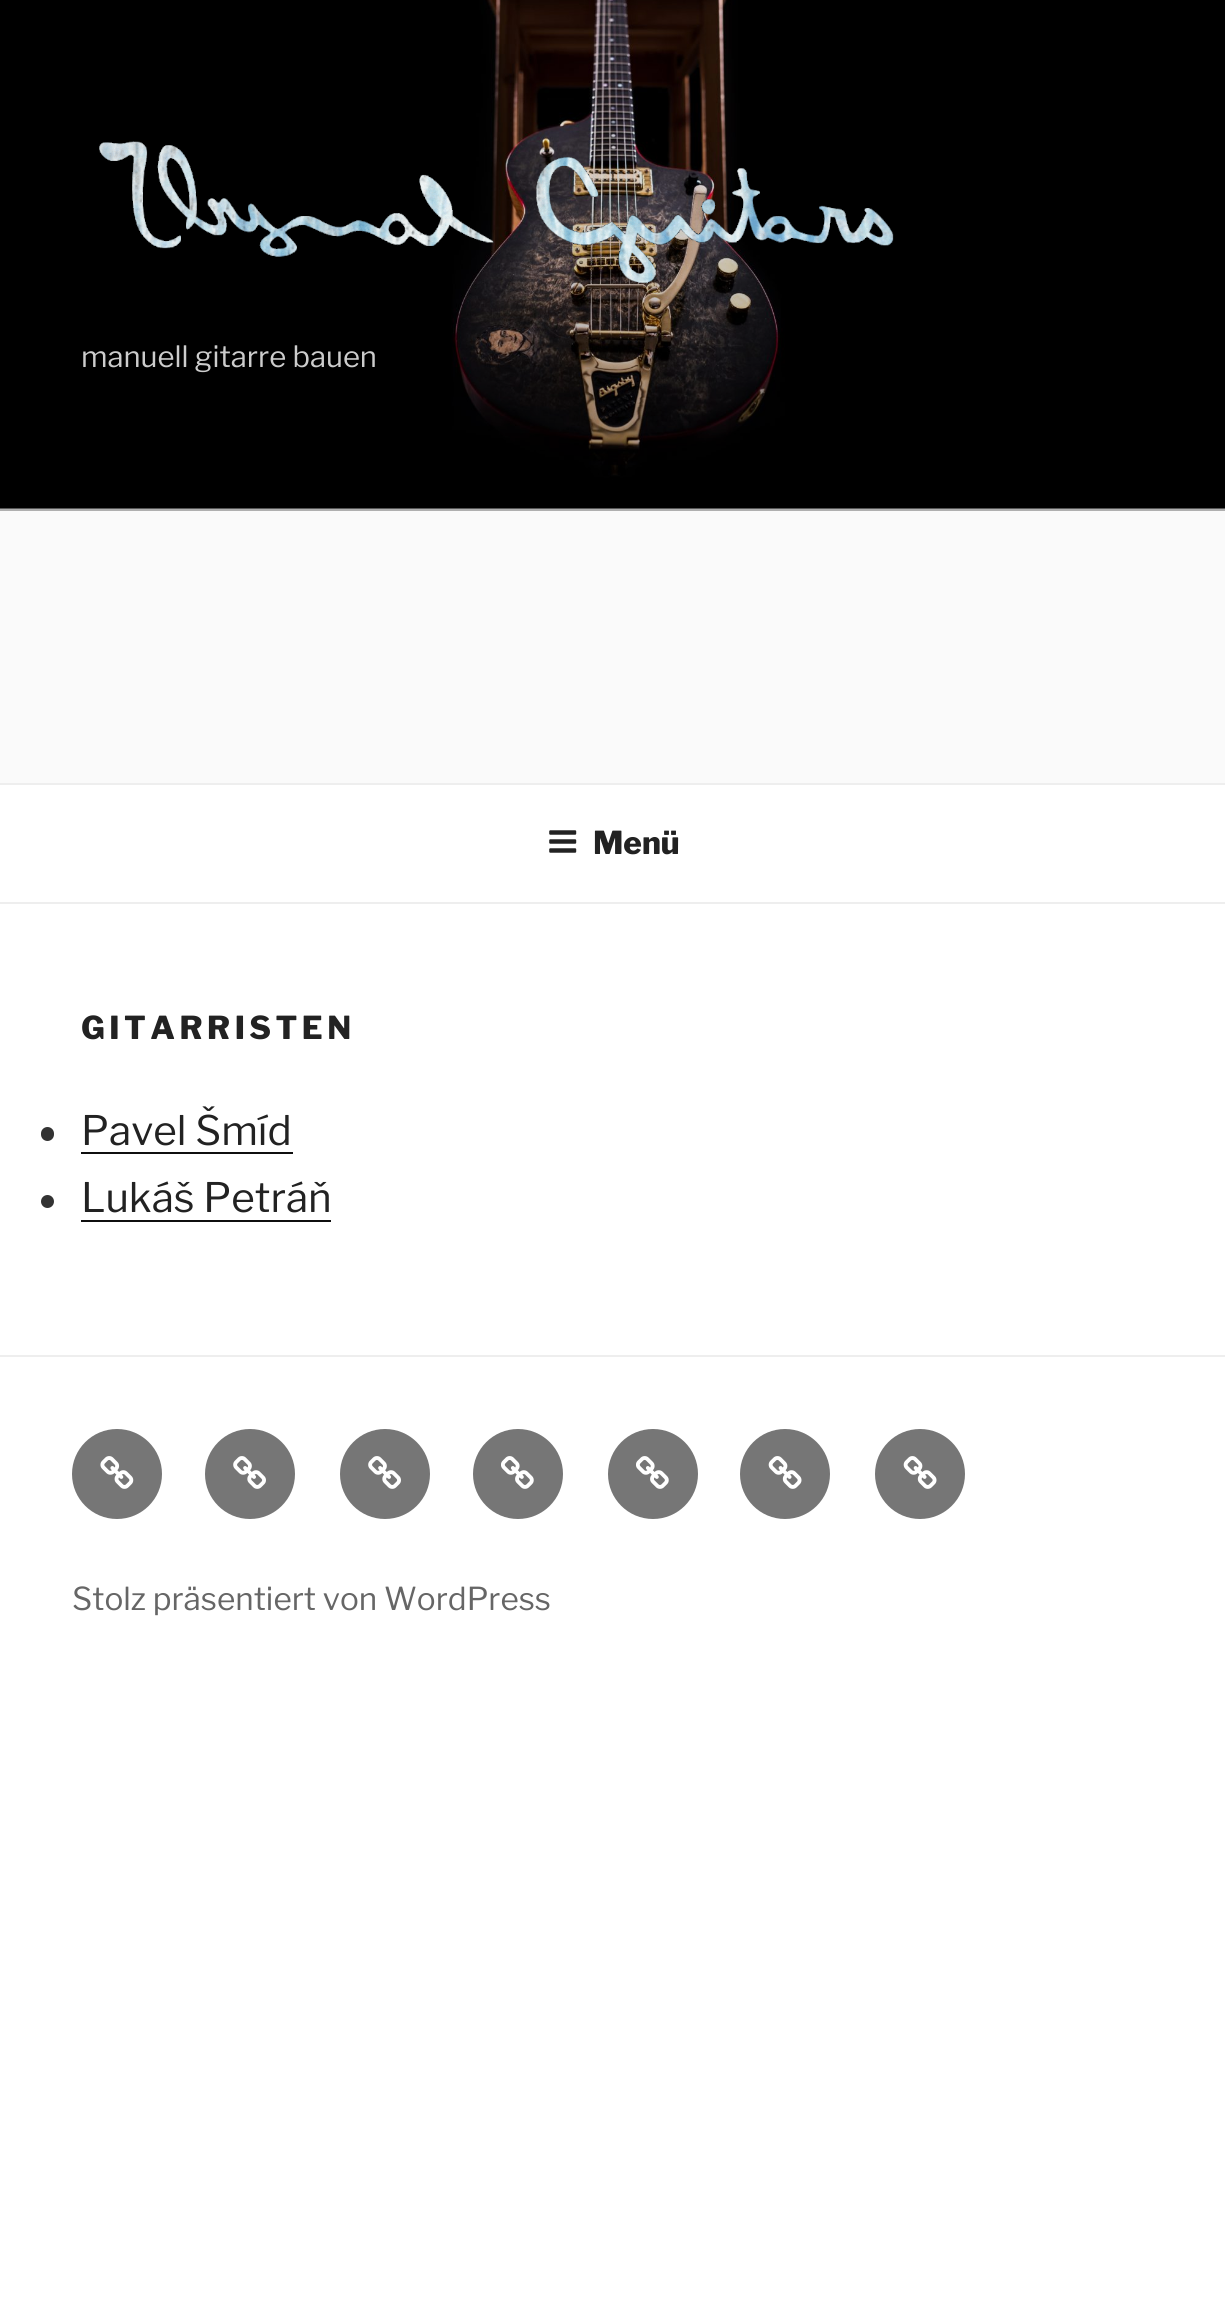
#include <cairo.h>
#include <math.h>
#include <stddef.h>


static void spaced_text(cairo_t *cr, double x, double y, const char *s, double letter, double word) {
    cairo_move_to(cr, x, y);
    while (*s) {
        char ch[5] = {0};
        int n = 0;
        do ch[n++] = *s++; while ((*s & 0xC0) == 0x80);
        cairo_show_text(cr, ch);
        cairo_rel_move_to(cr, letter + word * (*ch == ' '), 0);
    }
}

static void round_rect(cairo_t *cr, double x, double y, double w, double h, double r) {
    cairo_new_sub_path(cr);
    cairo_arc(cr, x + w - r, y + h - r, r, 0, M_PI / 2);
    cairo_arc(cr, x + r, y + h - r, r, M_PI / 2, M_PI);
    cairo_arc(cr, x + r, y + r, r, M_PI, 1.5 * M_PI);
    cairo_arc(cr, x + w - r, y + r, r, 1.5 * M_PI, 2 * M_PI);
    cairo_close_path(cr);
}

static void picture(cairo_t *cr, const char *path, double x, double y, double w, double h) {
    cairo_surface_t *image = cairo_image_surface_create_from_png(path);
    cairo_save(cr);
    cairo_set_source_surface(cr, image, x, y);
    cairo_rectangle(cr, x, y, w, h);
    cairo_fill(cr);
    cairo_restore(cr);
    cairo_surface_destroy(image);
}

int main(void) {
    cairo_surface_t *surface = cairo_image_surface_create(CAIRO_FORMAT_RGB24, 1225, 2321);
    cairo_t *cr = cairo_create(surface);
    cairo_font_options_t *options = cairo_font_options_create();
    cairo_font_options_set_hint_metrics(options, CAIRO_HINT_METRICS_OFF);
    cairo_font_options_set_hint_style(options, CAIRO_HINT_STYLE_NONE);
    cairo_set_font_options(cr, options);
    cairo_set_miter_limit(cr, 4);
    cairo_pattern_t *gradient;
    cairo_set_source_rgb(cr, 1, 1, 1);
    cairo_paint(cr);
    cairo_set_source_rgb(cr, 0.98, 0.98, 0.98);
    cairo_rectangle(cr, 0, 508, 1225, 275);
    cairo_fill(cr);
    picture(cr, "img1.png", 0, 0, 1225, 509);
    gradient = cairo_pattern_create_linear(613, 0, 613, 511);
    cairo_pattern_add_color_stop_rgba(gradient, 0, 0, 0, 0, 0);
    cairo_pattern_add_color_stop_rgba(gradient, 0.75, 0, 0, 0, 0.3);
    cairo_pattern_add_color_stop_rgba(gradient, 1, 0, 0, 0, 0.3);
    cairo_set_source(cr, gradient);
    cairo_pattern_destroy(gradient);
    cairo_rectangle(cr, 0, 28, 1225, 483);
    cairo_fill(cr);
    picture(cr, "img2.png", 99, 141, 795, 142);
    cairo_select_font_face(cr, "Libre Franklin", CAIRO_FONT_SLANT_NORMAL, CAIRO_FONT_WEIGHT_NORMAL);
    cairo_set_font_size(cr, 29.25);
    cairo_set_source_rgb(cr, 0.8, 0.8, 0.8);
    cairo_move_to(cr, 81, 367);
    cairo_show_text(cr, "manuell gitarre bauen");
    cairo_set_source_rgb(cr, 0.933, 0.933, 0.933);
    cairo_rectangle(cr, 0, 783, 1225, 2);
    cairo_fill(cr);
    cairo_rectangle(cr, 0, 902, 1225, 2);
    cairo_fill(cr);
    picture(cr, "img3.png", 549, 830, 28, 23);
    cairo_select_font_face(cr, "Libre Franklin ExtraBold", CAIRO_FONT_SLANT_NORMAL, CAIRO_FONT_WEIGHT_NORMAL);
    cairo_set_font_size(cr, 31.5);
    cairo_set_source_rgb(cr, 0.133, 0.133, 0.133);
    cairo_move_to(cr, 593, 854);
    cairo_show_text(cr, "Menü");
    spaced_text(cr, 81, 1039, "GITARRISTEN", 4.5, 0);
    cairo_set_source_rgb(cr, 0.2, 0.2, 0.2);
    round_rect(cr, 41, 1127, 13, 14, 6.5);
    cairo_fill(cr);
    cairo_select_font_face(cr, "Libre Franklin", CAIRO_FONT_SLANT_NORMAL, CAIRO_FONT_WEIGHT_NORMAL);
    cairo_set_font_size(cr, 40.5);
    cairo_set_source_rgb(cr, 0.133, 0.133, 0.133);
    cairo_move_to(cr, 81, 1145);
    cairo_show_text(cr, "Pavel Šmíd");
    cairo_set_source_rgb(cr, 0.059, 0.059, 0.059);
    cairo_rectangle(cr, 81, 1152, 212, 2);
    cairo_fill(cr);
    cairo_set_source_rgb(cr, 0.2, 0.2, 0.2);
    cairo_arc(cr, 47.5, 1201.5, 6.5, 0, 2 * M_PI);
    cairo_fill(cr);
    cairo_set_source_rgb(cr, 0.133, 0.133, 0.133);
    cairo_move_to(cr, 81, 1212);
    cairo_show_text(cr, "Lukáš Petráň");
    cairo_set_source_rgb(cr, 0.059, 0.059, 0.059);
    cairo_rectangle(cr, 81, 1220, 250, 2);
    cairo_fill(cr);
    cairo_set_source_rgb(cr, 0.933, 0.933, 0.933);
    cairo_rectangle(cr, 0, 1355, 1225, 2);
    cairo_fill(cr);
    cairo_set_source_rgb(cr, 0.463, 0.463, 0.463);
    cairo_arc(cr, 117, 1474, 45, 0, 2 * M_PI);
    cairo_fill(cr);
    picture(cr, "img4.png", 100, 1456, 34, 33);
    cairo_arc(cr, 250, 1474, 45, 0, 2 * M_PI);
    cairo_fill(cr);
    picture(cr, "img5.png", 233, 1456, 33, 33);
    cairo_arc(cr, 385, 1474, 45, 0, 2 * M_PI);
    cairo_fill(cr);
    picture(cr, "img5.png", 368, 1456, 33, 33);
    cairo_arc(cr, 518, 1474, 45, 0, 2 * M_PI);
    cairo_fill(cr);
    picture(cr, "img6.png", 501, 1456, 33, 33);
    cairo_arc(cr, 653, 1474, 45, 0, 2 * M_PI);
    cairo_fill(cr);
    picture(cr, "img6.png", 636, 1456, 33, 33);
    cairo_arc(cr, 785, 1474, 45, 0, 2 * M_PI);
    cairo_fill(cr);
    picture(cr, "img7.png", 768, 1456, 34, 33);
    cairo_arc(cr, 920, 1474, 45, 0, 2 * M_PI);
    cairo_fill(cr);
    picture(cr, "img7.png", 903, 1456, 34, 33);
    cairo_set_font_size(cr, 31.5);
    cairo_set_source_rgb(cr, 0.4, 0.4, 0.4);
    cairo_move_to(cr, 72, 1610);
    cairo_show_text(cr, "Stolz präsentiert von WordPress");
    cairo_surface_write_to_png(surface, "page.png");
    cairo_font_options_destroy(options);
    cairo_destroy(cr);
    cairo_surface_destroy(surface);
    return 0;
}
